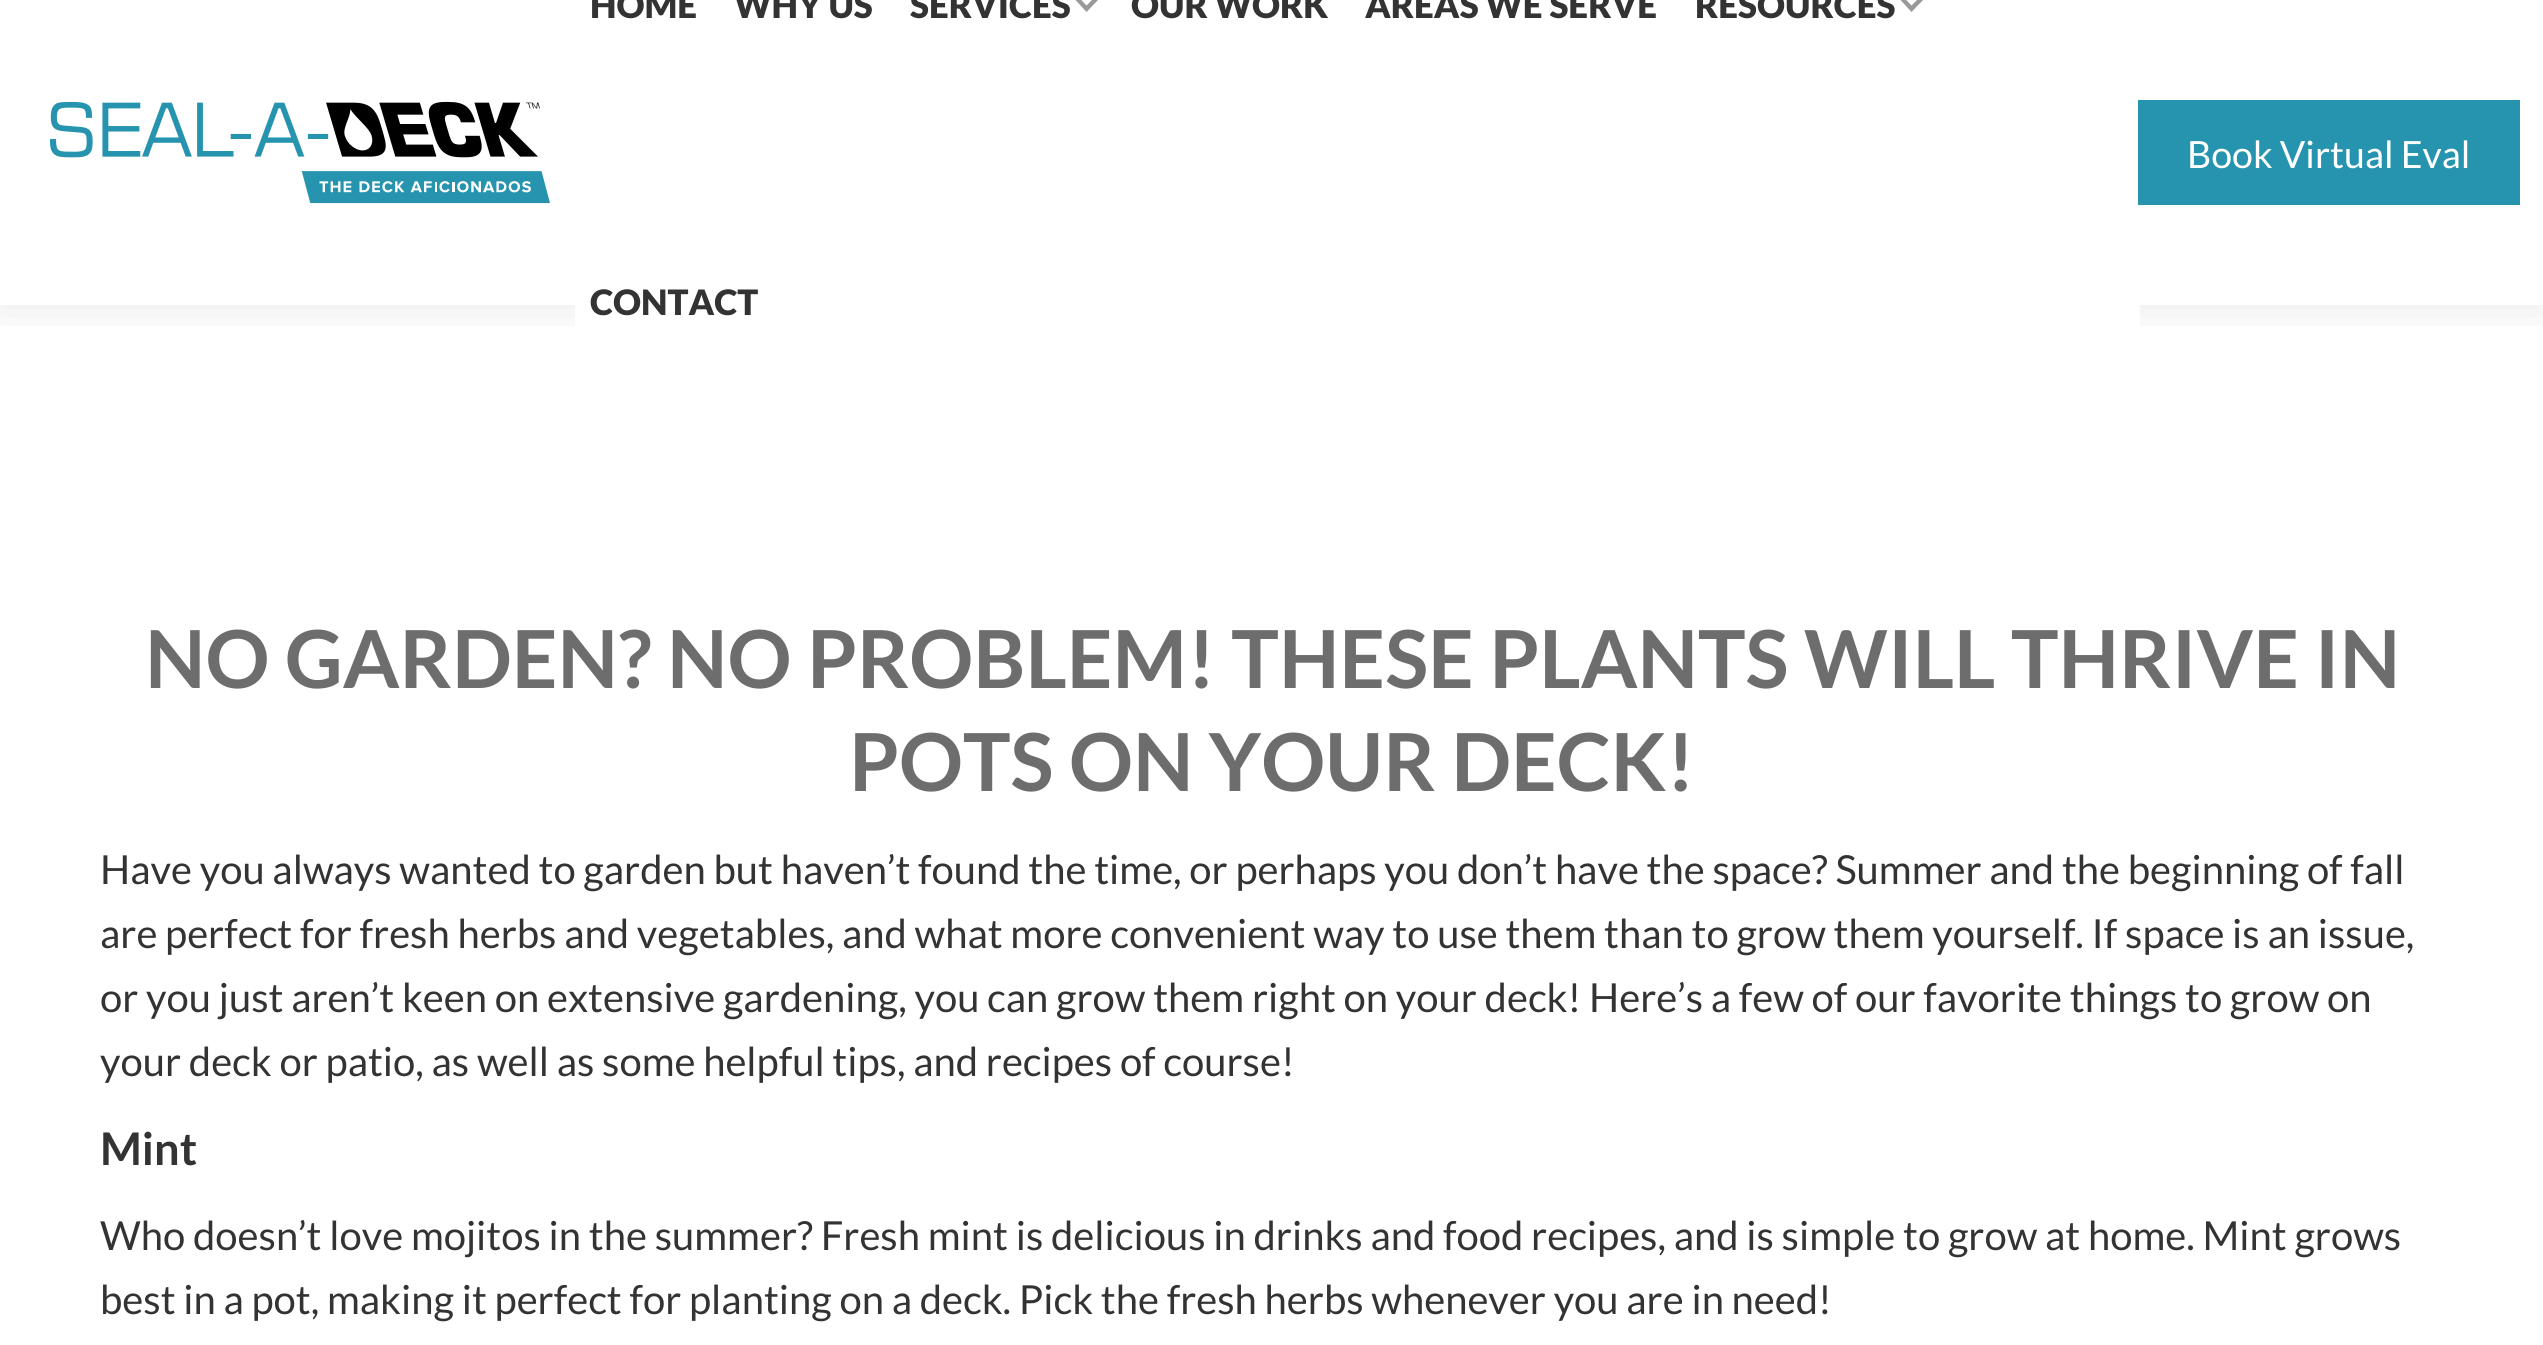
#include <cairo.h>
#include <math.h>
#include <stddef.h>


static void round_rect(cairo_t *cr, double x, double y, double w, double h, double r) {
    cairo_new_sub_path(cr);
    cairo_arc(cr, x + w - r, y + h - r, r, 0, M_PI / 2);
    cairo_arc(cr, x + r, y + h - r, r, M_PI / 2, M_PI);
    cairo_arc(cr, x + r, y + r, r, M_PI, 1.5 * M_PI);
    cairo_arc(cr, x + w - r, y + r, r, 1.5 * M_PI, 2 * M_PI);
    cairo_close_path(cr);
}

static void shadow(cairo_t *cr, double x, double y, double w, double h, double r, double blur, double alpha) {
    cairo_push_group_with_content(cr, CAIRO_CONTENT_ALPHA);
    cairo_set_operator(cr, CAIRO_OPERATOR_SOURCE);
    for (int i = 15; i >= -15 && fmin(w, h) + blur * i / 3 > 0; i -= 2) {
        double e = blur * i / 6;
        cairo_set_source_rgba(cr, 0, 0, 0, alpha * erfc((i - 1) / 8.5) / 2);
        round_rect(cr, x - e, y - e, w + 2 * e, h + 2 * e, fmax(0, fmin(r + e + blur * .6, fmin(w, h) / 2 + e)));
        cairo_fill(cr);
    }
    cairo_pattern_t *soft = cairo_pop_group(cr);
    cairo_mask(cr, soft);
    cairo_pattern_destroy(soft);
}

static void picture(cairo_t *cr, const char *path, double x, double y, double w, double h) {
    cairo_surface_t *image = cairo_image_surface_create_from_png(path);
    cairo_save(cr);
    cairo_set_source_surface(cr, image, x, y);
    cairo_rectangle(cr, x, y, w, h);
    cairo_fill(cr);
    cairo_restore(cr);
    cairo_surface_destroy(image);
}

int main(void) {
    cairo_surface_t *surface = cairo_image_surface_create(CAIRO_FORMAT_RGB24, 2543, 1345);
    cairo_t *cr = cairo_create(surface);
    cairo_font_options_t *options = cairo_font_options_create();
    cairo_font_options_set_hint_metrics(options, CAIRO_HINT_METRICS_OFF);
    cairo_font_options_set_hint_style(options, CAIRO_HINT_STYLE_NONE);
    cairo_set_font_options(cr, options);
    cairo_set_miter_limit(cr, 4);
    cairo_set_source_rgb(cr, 1, 1, 1);
    cairo_paint(cr);
    cairo_save(cr);
    cairo_rectangle(cr, 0, 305, 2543, 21);
    cairo_clip(cr);
    cairo_set_source_rgb(cr, 0, 0, 0);
    shadow(cr, 0, 0, 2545, 305, 0, 25, 0.1);
    cairo_restore(cr);
    picture(cr, "img1.png", 50, 101, 500, 103);
    cairo_set_source_rgb(cr, 1, 1, 1);
    cairo_rectangle(cr, 575, 305, 1565, 32);
    cairo_fill(cr);
    cairo_select_font_face(cr, "Lato Black", CAIRO_FONT_SLANT_NORMAL, CAIRO_FONT_WEIGHT_NORMAL);
    cairo_set_font_size(cr, 35);
    cairo_set_source_rgb(cr, 0.2, 0.2, 0.2);
    cairo_move_to(cr, 590, 18);
    cairo_show_text(cr, "HOME");
    cairo_move_to(cr, 734, 18);
    cairo_show_text(cr, "WHY US");
    cairo_move_to(cr, 910, 18);
    cairo_show_text(cr, "SERVICES");
    cairo_set_source_rgb(cr, 0.6, 0.6, 0.6);
    cairo_new_path(cr);
    cairo_move_to(cr, 1095.5, -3.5);
    cairo_line_to(cr, 1086.5, 5.5);
    cairo_line_to(cr, 1078, -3.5);
    cairo_line_to(cr, 1075, -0.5);
    cairo_line_to(cr, 1086.5, 12);
    cairo_line_to(cr, 1098.5, -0.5);
    cairo_close_path(cr);
    cairo_fill(cr);
    cairo_set_source_rgb(cr, 0.2, 0.2, 0.2);
    cairo_move_to(cr, 1131, 18);
    cairo_show_text(cr, "OUR WORK");
    cairo_move_to(cr, 1365, 18);
    cairo_show_text(cr, "AREAS WE SERVE");
    cairo_move_to(cr, 1695, 18);
    cairo_show_text(cr, "RESOURCES");
    cairo_set_source_rgb(cr, 0.6, 0.6, 0.6);
    cairo_new_path(cr);
    cairo_move_to(cr, 1920.5, -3.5);
    cairo_line_to(cr, 1911.5, 5.5);
    cairo_line_to(cr, 1903, -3.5);
    cairo_line_to(cr, 1900, -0.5);
    cairo_line_to(cr, 1911.5, 12);
    cairo_line_to(cr, 1923.5, -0.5);
    cairo_close_path(cr);
    cairo_fill(cr);
    cairo_set_source_rgb(cr, 0.2, 0.2, 0.2);
    cairo_move_to(cr, 590, 315);
    cairo_show_text(cr, "CONTACT");
    cairo_set_source_rgb(cr, 0.149, 0.58, 0.682);
    cairo_rectangle(cr, 2138, 100, 382, 105);
    cairo_fill(cr);
    cairo_select_font_face(cr, "Lato", CAIRO_FONT_SLANT_NORMAL, CAIRO_FONT_WEIGHT_NORMAL);
    cairo_set_font_size(cr, 37.5);
    cairo_set_source_rgb(cr, 1, 1, 1);
    cairo_move_to(cr, 2187, 168);
    cairo_show_text(cr, "Book Virtual Eval");
    cairo_select_font_face(cr, "Lato", CAIRO_FONT_SLANT_NORMAL, CAIRO_FONT_WEIGHT_BOLD);
    cairo_set_font_size(cr, 80);
    cairo_set_source_rgb(cr, 0.427, 0.427, 0.427);
    cairo_move_to(cr, 145, 688);
    cairo_show_text(cr, "NO GARDEN? NO PROBLEM! THESE PLANTS WILL THRIVE IN");
    cairo_move_to(cr, 849, 791);
    cairo_show_text(cr, "POTS ON YOUR DECK!");
    cairo_select_font_face(cr, "Lato", CAIRO_FONT_SLANT_NORMAL, CAIRO_FONT_WEIGHT_NORMAL);
    cairo_set_font_size(cr, 40);
    cairo_set_source_rgb(cr, 0.2, 0.2, 0.2);
    cairo_move_to(cr, 100, 884);
    cairo_show_text(cr, "Have you always wanted to garden but haven’t found the time, or perhaps you don’t have the space? Summer and the beginning of fall");
    cairo_move_to(cr, 100, 948);
    cairo_show_text(cr, "are perfect for fresh herbs and vegetables, and what more convenient way to use them than to grow them yourself. If space is an issue,");
    cairo_move_to(cr, 100, 1012);
    cairo_show_text(cr, "or you just aren’t keen on extensive gardening, you can grow them right on your deck! Here’s a few of our favorite things to grow on");
    cairo_move_to(cr, 100, 1076);
    cairo_show_text(cr, "your deck or patio, as well as some helpful tips, and recipes of course!");
    cairo_select_font_face(cr, "Lato", CAIRO_FONT_SLANT_NORMAL, CAIRO_FONT_WEIGHT_BOLD);
    cairo_set_font_size(cr, 45);
    cairo_move_to(cr, 100, 1165);
    cairo_show_text(cr, "Mint");
    cairo_select_font_face(cr, "Lato", CAIRO_FONT_SLANT_NORMAL, CAIRO_FONT_WEIGHT_NORMAL);
    cairo_set_font_size(cr, 40);
    cairo_move_to(cr, 100, 1250);
    cairo_show_text(cr, "Who doesn’t love mojitos in the summer? Fresh mint is delicious in drinks and food recipes, and is simple to grow at home. Mint grows");
    cairo_move_to(cr, 100, 1314);
    cairo_show_text(cr, "best in a pot, making it perfect for planting on a deck. Pick the fresh herbs whenever you are in need!");
    cairo_surface_write_to_png(surface, "page.png");
    cairo_font_options_destroy(options);
    cairo_destroy(cr);
    cairo_surface_destroy(surface);
    return 0;
}
